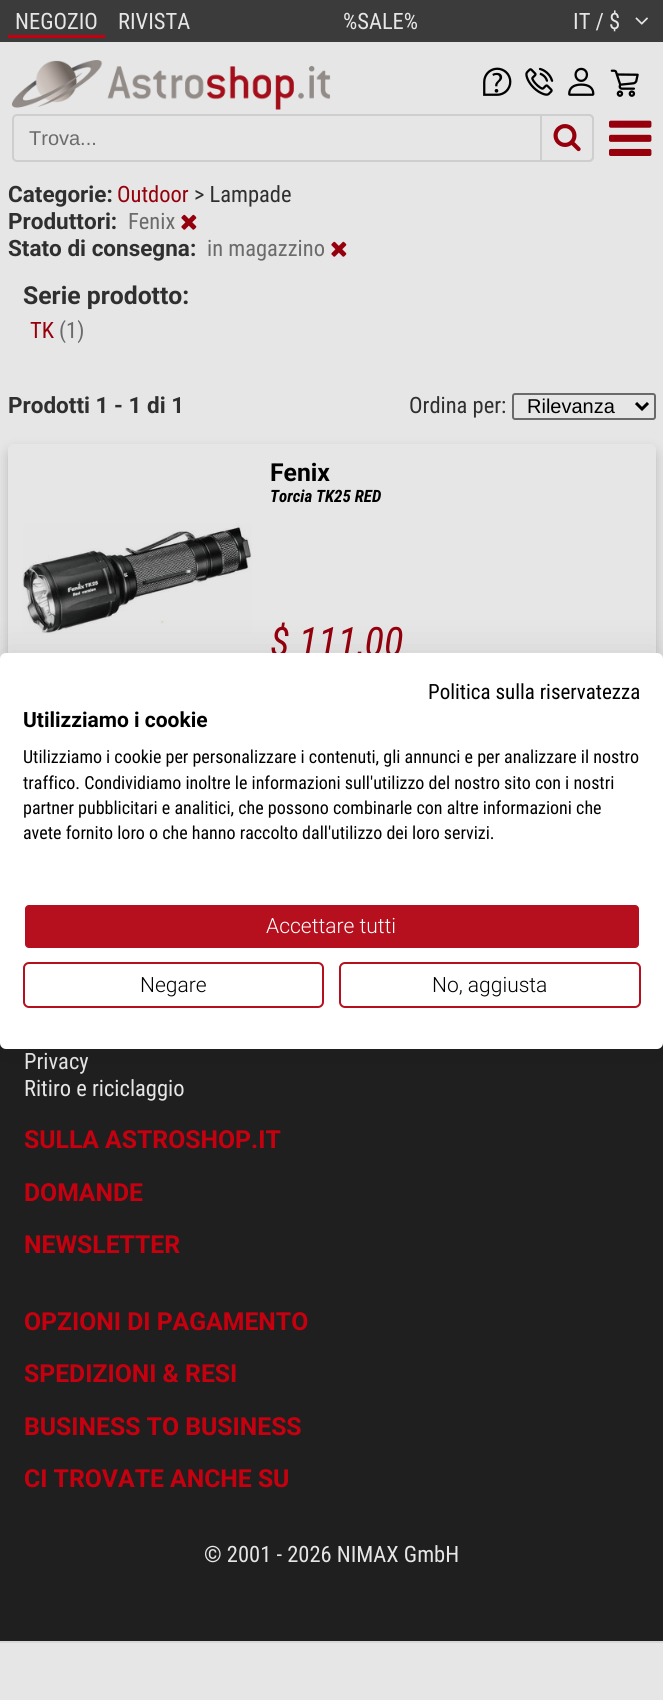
#include <cairo.h>
#include <math.h>
#include <stddef.h>


static void round_rect(cairo_t *cr, double x, double y, double w, double h, double r) {
    cairo_new_sub_path(cr);
    cairo_arc(cr, x + w - r, y + h - r, r, 0, M_PI / 2);
    cairo_arc(cr, x + r, y + h - r, r, M_PI / 2, M_PI);
    cairo_arc(cr, x + r, y + r, r, M_PI, 1.5 * M_PI);
    cairo_arc(cr, x + w - r, y + r, r, 1.5 * M_PI, 2 * M_PI);
    cairo_close_path(cr);
}

static void shadow(cairo_t *cr, double x, double y, double w, double h, double r, double blur, double alpha) {
    cairo_push_group_with_content(cr, CAIRO_CONTENT_ALPHA);
    cairo_set_operator(cr, CAIRO_OPERATOR_SOURCE);
    for (int i = 15; i >= -15 && fmin(w, h) + blur * i / 3 > 0; i -= 2) {
        double e = blur * i / 6;
        cairo_set_source_rgba(cr, 0, 0, 0, alpha * erfc((i - 1) / 8.5) / 2);
        round_rect(cr, x - e, y - e, w + 2 * e, h + 2 * e, fmax(0, fmin(r + e + blur * .6, fmin(w, h) / 2 + e)));
        cairo_fill(cr);
    }
    cairo_pattern_t *soft = cairo_pop_group(cr);
    cairo_mask(cr, soft);
    cairo_pattern_destroy(soft);
}

static void picture(cairo_t *cr, const char *path, double x, double y, double w, double h) {
    cairo_surface_t *image = cairo_image_surface_create_from_png(path);
    cairo_save(cr);
    cairo_set_source_surface(cr, image, x, y);
    cairo_rectangle(cr, x, y, w, h);
    cairo_fill(cr);
    cairo_restore(cr);
    cairo_surface_destroy(image);
}

int main(void) {
    cairo_surface_t *surface = cairo_image_surface_create(CAIRO_FORMAT_RGB24, 663, 1700);
    cairo_t *cr = cairo_create(surface);
    cairo_font_options_t *options = cairo_font_options_create();
    cairo_font_options_set_hint_metrics(options, CAIRO_HINT_METRICS_OFF);
    cairo_font_options_set_hint_style(options, CAIRO_HINT_STYLE_NONE);
    cairo_set_font_options(cr, options);
    cairo_set_miter_limit(cr, 4);
    cairo_set_source_rgb(cr, 0.902, 0.902, 0.902);
    cairo_paint(cr);
    cairo_set_source_rgb(cr, 0.231, 0.231, 0.235);
    cairo_rectangle(cr, 0, 0, 663, 42);
    cairo_fill(cr);
    cairo_select_font_face(cr, "Roboto Condensed", CAIRO_FONT_SLANT_NORMAL, CAIRO_FONT_WEIGHT_NORMAL);
    cairo_set_font_size(cr, 22.5);
    cairo_set_source_rgb(cr, 0.902, 0.902, 0.902);
    cairo_move_to(cr, 15, 29);
    cairo_show_text(cr, "NEGOZIO");
    cairo_set_source_rgb(cr, 0.78, 0, 0.059);
    cairo_rectangle(cr, 8, 35, 97, 3);
    cairo_fill(cr);
    cairo_set_source_rgb(cr, 0.902, 0.902, 0.902);
    cairo_move_to(cr, 118, 29);
    cairo_show_text(cr, "RIVISTA");
    cairo_move_to(cr, 343, 29);
    cairo_show_text(cr, "%SALE%");
    cairo_move_to(cr, 573, 29);
    cairo_show_text(cr, "IT / $");
    picture(cr, "img1.png", 635, 17, 13, 8);
    picture(cr, "img2.png", 12, 60, 319, 50);
    picture(cr, "img3.png", 483, 67, 29, 29);
    picture(cr, "img4.png", 525, 67, 29, 29);
    picture(cr, "img5.png", 568, 67, 27, 29);
    picture(cr, "img6.png", 610, 69, 29, 28);
    round_rect(cr, 13, 115, 580, 46, 4);
    cairo_set_source_rgb(cr, 0.808, 0.808, 0.808);
    cairo_stroke(cr);
    cairo_select_font_face(cr, "Liberation Sans", CAIRO_FONT_SLANT_NORMAL, CAIRO_FONT_WEIGHT_NORMAL);
    cairo_set_font_size(cr, 20);
    cairo_set_source_rgb(cr, 0.42, 0.42, 0.42);
    cairo_move_to(cr, 29, 145);
    cairo_show_text(cr, "Trova...");
    cairo_set_source_rgb(cr, 0.902, 0.902, 0.902);
    cairo_new_path(cr);
    cairo_move_to(cr, 541, 115);
    cairo_line_to(cr, 589, 115);
    cairo_curve_to(cr, 591, 115, 593, 117, 593, 119);
    cairo_line_to(cr, 593, 157);
    cairo_curve_to(cr, 593, 159, 591, 161, 589, 161);
    cairo_line_to(cr, 541, 161);
    cairo_close_path(cr);
    cairo_fill_preserve(cr);
    cairo_set_source_rgb(cr, 0.808, 0.808, 0.808);
    cairo_stroke(cr);
    picture(cr, "img7.png", 553, 124, 28, 28);
    picture(cr, "img8.png", 609, 120, 43, 36);
    cairo_select_font_face(cr, "Roboto", CAIRO_FONT_SLANT_NORMAL, CAIRO_FONT_WEIGHT_BOLD);
    cairo_set_font_size(cr, 22.5);
    cairo_set_source_rgb(cr, 0.184, 0.184, 0.184);
    cairo_move_to(cr, 8, 202);
    cairo_show_text(cr, "Categorie:");
    cairo_select_font_face(cr, "Roboto Condensed", CAIRO_FONT_SLANT_NORMAL, CAIRO_FONT_WEIGHT_NORMAL);
    cairo_set_source_rgb(cr, 0.584, 0, 0.047);
    cairo_move_to(cr, 117, 202);
    cairo_show_text(cr, "Outdoor");
    cairo_set_source_rgb(cr, 0.184, 0.184, 0.184);
    cairo_move_to(cr, 194, 202);
    cairo_show_text(cr, "> Lampade");
    cairo_select_font_face(cr, "Roboto", CAIRO_FONT_SLANT_NORMAL, CAIRO_FONT_WEIGHT_BOLD);
    cairo_move_to(cr, 8, 229);
    cairo_show_text(cr, "Produttori:");
    cairo_select_font_face(cr, "Roboto Condensed", CAIRO_FONT_SLANT_NORMAL, CAIRO_FONT_WEIGHT_NORMAL);
    cairo_set_source_rgb(cr, 0.42, 0.42, 0.42);
    cairo_move_to(cr, 128, 229);
    cairo_show_text(cr, "Fenix");
    picture(cr, "img9.png", 181, 214, 16, 16);
    cairo_select_font_face(cr, "Roboto", CAIRO_FONT_SLANT_NORMAL, CAIRO_FONT_WEIGHT_BOLD);
    cairo_set_source_rgb(cr, 0.184, 0.184, 0.184);
    cairo_move_to(cr, 8, 256);
    cairo_show_text(cr, "Stato di consegna:");
    cairo_select_font_face(cr, "Roboto Condensed", CAIRO_FONT_SLANT_NORMAL, CAIRO_FONT_WEIGHT_NORMAL);
    cairo_set_source_rgb(cr, 0.42, 0.42, 0.42);
    cairo_move_to(cr, 207, 256);
    cairo_show_text(cr, "in magazzino");
    picture(cr, "img9.png", 331, 241, 16, 16);
    cairo_select_font_face(cr, "Roboto", CAIRO_FONT_SLANT_NORMAL, CAIRO_FONT_WEIGHT_BOLD);
    cairo_set_font_size(cr, 24.75);
    cairo_set_source_rgb(cr, 0.184, 0.184, 0.184);
    cairo_move_to(cr, 23, 304);
    cairo_show_text(cr, "Serie prodotto:");
    cairo_select_font_face(cr, "Roboto Condensed", CAIRO_FONT_SLANT_NORMAL, CAIRO_FONT_WEIGHT_NORMAL);
    cairo_set_font_size(cr, 22.5);
    cairo_set_source_rgb(cr, 0.584, 0, 0.047);
    cairo_move_to(cr, 30, 338);
    cairo_show_text(cr, "TK");
    cairo_set_source_rgb(cr, 0.42, 0.42, 0.42);
    cairo_move_to(cr, 59, 338);
    cairo_show_text(cr, "(1)");
    cairo_select_font_face(cr, "Roboto", CAIRO_FONT_SLANT_NORMAL, CAIRO_FONT_WEIGHT_BOLD);
    cairo_set_source_rgb(cr, 0.184, 0.184, 0.184);
    cairo_move_to(cr, 8, 413);
    cairo_show_text(cr, "Prodotti 1 - 1 di 1");
    cairo_select_font_face(cr, "Roboto Condensed", CAIRO_FONT_SLANT_NORMAL, CAIRO_FONT_WEIGHT_NORMAL);
    cairo_move_to(cr, 409, 413);
    cairo_show_text(cr, "Ordina per:");
    round_rect(cr, 513, 394, 142, 25, 2);
    cairo_set_source_rgb(cr, 0.416, 0.416, 0.416);
    cairo_stroke(cr);
    cairo_new_path(cr);
    cairo_move_to(cr, 636, 403);
    cairo_line_to(cr, 642, 409);
    cairo_line_to(cr, 648, 403);
    cairo_set_source_rgb(cr, 0, 0, 0);
    cairo_set_line_width(cr, 3);
    cairo_stroke(cr);
    cairo_select_font_face(cr, "Liberation Sans", CAIRO_FONT_SLANT_NORMAL, CAIRO_FONT_WEIGHT_NORMAL);
    cairo_set_font_size(cr, 20);
    cairo_move_to(cr, 527, 413);
    cairo_show_text(cr, "Rilevanza");
    cairo_save(cr);
    cairo_set_fill_rule(cr, CAIRO_FILL_RULE_EVEN_ODD);
    cairo_new_path(cr);
    cairo_move_to(cr, 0, 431);
    cairo_line_to(cr, 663, 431);
    cairo_line_to(cr, 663, 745);
    cairo_line_to(cr, 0, 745);
    cairo_close_path(cr);
    cairo_move_to(cr, 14, 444);
    cairo_line_to(cr, 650, 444);
    cairo_curve_to(cr, 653.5, 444, 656, 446.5, 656, 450);
    cairo_line_to(cr, 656, 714);
    cairo_curve_to(cr, 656, 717.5, 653.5, 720, 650, 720);
    cairo_line_to(cr, 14, 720);
    cairo_curve_to(cr, 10.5, 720, 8, 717.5, 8, 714);
    cairo_line_to(cr, 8, 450);
    cairo_curve_to(cr, 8, 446.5, 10.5, 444, 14, 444);
    cairo_close_path(cr);
    cairo_clip(cr);
    cairo_set_source_rgb(cr, 0, 0, 0);
    shadow(cr, 8, 450, 648, 276, 6, 6, 0.2);
    cairo_restore(cr);
    picture(cr, "img10.png", 22, 523, 230, 111);
    cairo_select_font_face(cr, "Roboto", CAIRO_FONT_SLANT_NORMAL, CAIRO_FONT_WEIGHT_BOLD);
    cairo_set_font_size(cr, 24.75);
    cairo_move_to(cr, 270, 481);
    cairo_show_text(cr, "Fenix");
    cairo_select_font_face(cr, "Roboto Condensed", CAIRO_FONT_SLANT_ITALIC, CAIRO_FONT_WEIGHT_BOLD);
    cairo_set_font_size(cr, 17);
    cairo_move_to(cr, 270, 502);
    cairo_show_text(cr, "Torcia TK25 RED");
    cairo_select_font_face(cr, "Roboto Condensed", CAIRO_FONT_SLANT_ITALIC, CAIRO_FONT_WEIGHT_NORMAL);
    cairo_set_font_size(cr, 40.5);
    cairo_set_source_rgb(cr, 0.584, 0, 0.047);
    cairo_move_to(cr, 270, 656);
    cairo_show_text(cr, "$ 111,00");
    cairo_set_source_rgb(cr, 0.122, 0.122, 0.122);
    cairo_rectangle(cr, 0, 1043, 663, 598);
    cairo_fill(cr);
    cairo_set_source_rgb(cr, 0.843, 0.843, 0.843);
    cairo_rectangle(cr, 0, 1641, 663, 2);
    cairo_fill(cr);
    cairo_select_font_face(cr, "Roboto Condensed", CAIRO_FONT_SLANT_NORMAL, CAIRO_FONT_WEIGHT_NORMAL);
    cairo_set_font_size(cr, 22.5);
    cairo_set_source_rgb(cr, 0.902, 0.902, 0.902);
    cairo_move_to(cr, 24, 1069);
    cairo_show_text(cr, "Privacy");
    cairo_move_to(cr, 24, 1096);
    cairo_show_text(cr, "Ritiro e riciclaggio");
    cairo_select_font_face(cr, "Roboto", CAIRO_FONT_SLANT_NORMAL, CAIRO_FONT_WEIGHT_BOLD);
    cairo_set_font_size(cr, 24.75);
    cairo_set_source_rgb(cr, 0.78, 0, 0.059);
    cairo_move_to(cr, 24, 1148);
    cairo_show_text(cr, "SULLA ASTROSHOP.IT");
    cairo_move_to(cr, 24, 1201);
    cairo_show_text(cr, "DOMANDE");
    cairo_move_to(cr, 24, 1253);
    cairo_show_text(cr, "NEWSLETTER");
    cairo_move_to(cr, 24, 1330);
    cairo_show_text(cr, "OPZIONI DI PAGAMENTO");
    cairo_move_to(cr, 24, 1382);
    cairo_show_text(cr, "SPEDIZIONI & RESI");
    cairo_move_to(cr, 24, 1435);
    cairo_show_text(cr, "BUSINESS TO BUSINESS");
    cairo_move_to(cr, 24, 1487);
    cairo_show_text(cr, "CI TROVATE ANCHE SU");
    cairo_select_font_face(cr, "Roboto Condensed", CAIRO_FONT_SLANT_NORMAL, CAIRO_FONT_WEIGHT_NORMAL);
    cairo_set_font_size(cr, 22.5);
    cairo_set_source_rgb(cr, 0.902, 0.902, 0.902);
    cairo_move_to(cr, 204, 1562);
    cairo_show_text(cr, "© 2001 - 2026 NIMAX GmbH");
    cairo_set_source_rgb(cr, 0, 0, 0);
    shadow(cr, 0, 653, 663, 396, 6, 18, 0.1);
    cairo_set_source_rgb(cr, 1, 1, 1);
    round_rect(cr, 0, 653, 663, 396, 6);
    cairo_fill(cr);
    cairo_set_font_size(cr, 21);
    cairo_set_source_rgb(cr, 0, 0, 0);
    cairo_move_to(cr, 428, 699);
    cairo_show_text(cr, "Politica sulla riservatezza");
    cairo_select_font_face(cr, "Roboto", CAIRO_FONT_SLANT_NORMAL, CAIRO_FONT_WEIGHT_BOLD);
    cairo_move_to(cr, 23, 727);
    cairo_show_text(cr, "Utilizziamo i cookie");
    cairo_select_font_face(cr, "Roboto Condensed", CAIRO_FONT_SLANT_NORMAL, CAIRO_FONT_WEIGHT_NORMAL);
    cairo_set_font_size(cr, 18);
    cairo_move_to(cr, 23, 763);
    cairo_show_text(cr, "Utilizziamo i cookie per personalizzare i contenuti, gli annunci e per analizzare il nostro");
    cairo_move_to(cr, 23, 789);
    cairo_show_text(cr, "traffico. Condividiamo inoltre le informazioni sull'utilizzo del nostro sito con i nostri");
    cairo_move_to(cr, 23, 814);
    cairo_show_text(cr, "partner pubblicitari e analitici, che possono combinarle con altre informazioni che");
    cairo_move_to(cr, 23, 839);
    cairo_show_text(cr, "avete fornito loro o che hanno raccolto dall'utilizzo dei loro servizi.");
    cairo_set_source_rgb(cr, 0.714, 0.059, 0.114);
    round_rect(cr, 24, 904, 616, 45, 5);
    cairo_fill_preserve(cr);
    cairo_set_source_rgb(cr, 1, 1, 1);
    cairo_set_line_width(cr, 2);
    cairo_stroke(cr);
    cairo_select_font_face(cr, "Roboto Light", CAIRO_FONT_SLANT_NORMAL, CAIRO_FONT_WEIGHT_NORMAL);
    cairo_set_font_size(cr, 21);
    cairo_move_to(cr, 266, 933);
    cairo_show_text(cr, "Accettare tutti");
    round_rect(cr, 24, 963, 299, 44, 5);
    cairo_set_source_rgb(cr, 0.714, 0.059, 0.114);
    cairo_stroke(cr);
    cairo_set_source_rgb(cr, 0, 0, 0);
    cairo_move_to(cr, 140, 992);
    cairo_show_text(cr, "Negare");
    round_rect(cr, 340, 963, 300, 44, 5);
    cairo_set_source_rgb(cr, 0.714, 0.059, 0.114);
    cairo_stroke(cr);
    cairo_set_source_rgb(cr, 0, 0, 0);
    cairo_move_to(cr, 432, 992);
    cairo_show_text(cr, "No, aggiusta");
    cairo_surface_write_to_png(surface, "page.png");
    cairo_font_options_destroy(options);
    cairo_destroy(cr);
    cairo_surface_destroy(surface);
    return 0;
}
